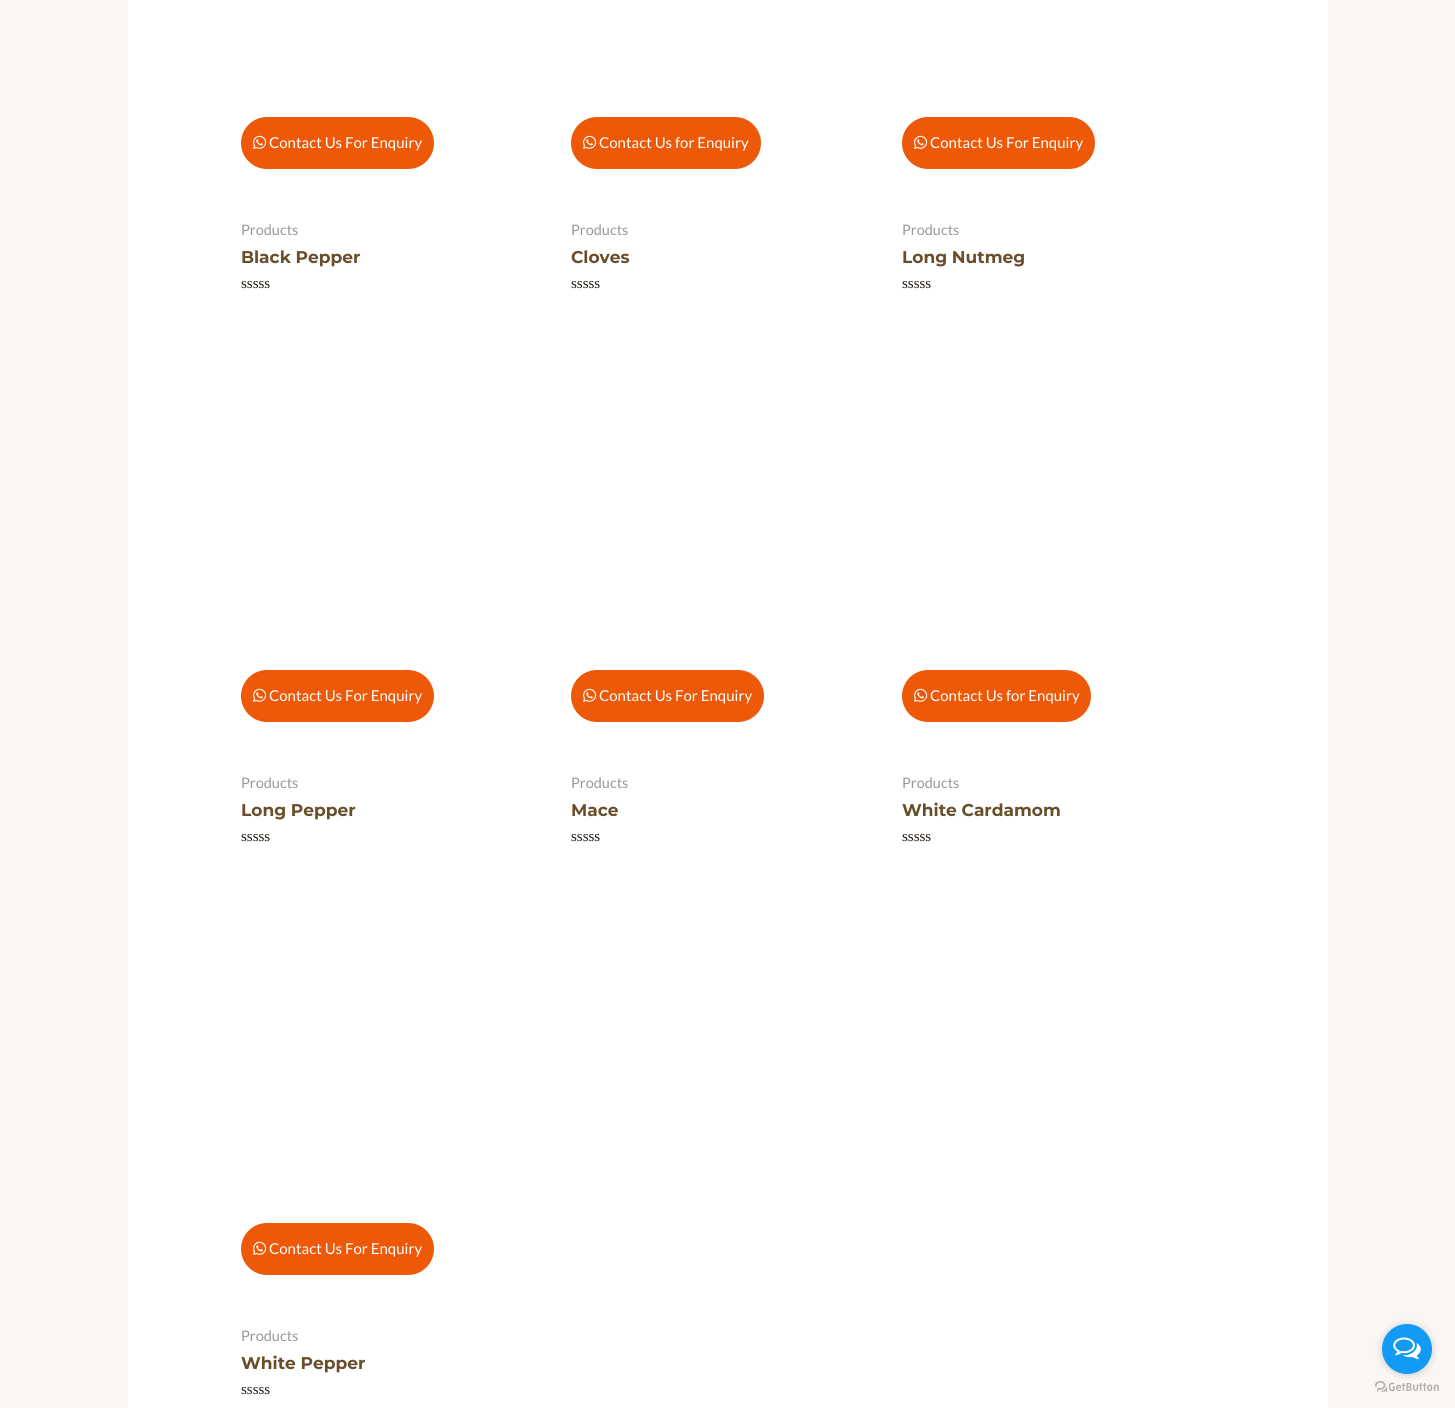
#include <cairo.h>
#include <math.h>
#include <stddef.h>


static void round_rect(cairo_t *cr, double x, double y, double w, double h, double r) {
    cairo_new_sub_path(cr);
    cairo_arc(cr, x + w - r, y + h - r, r, 0, M_PI / 2);
    cairo_arc(cr, x + r, y + h - r, r, M_PI / 2, M_PI);
    cairo_arc(cr, x + r, y + r, r, M_PI, 1.5 * M_PI);
    cairo_arc(cr, x + w - r, y + r, r, 1.5 * M_PI, 2 * M_PI);
    cairo_close_path(cr);
}

static void shadow(cairo_t *cr, double x, double y, double w, double h, double r, double blur, double alpha) {
    cairo_push_group_with_content(cr, CAIRO_CONTENT_ALPHA);
    cairo_set_operator(cr, CAIRO_OPERATOR_SOURCE);
    for (int i = 15; i >= -15 && fmin(w, h) + blur * i / 3 > 0; i -= 2) {
        double e = blur * i / 6;
        cairo_set_source_rgba(cr, 0, 0, 0, alpha * erfc((i - 1) / 8.5) / 2);
        round_rect(cr, x - e, y - e, w + 2 * e, h + 2 * e, fmax(0, fmin(r + e + blur * .6, fmin(w, h) / 2 + e)));
        cairo_fill(cr);
    }
    cairo_pattern_t *soft = cairo_pop_group(cr);
    cairo_mask(cr, soft);
    cairo_pattern_destroy(soft);
}

static void picture(cairo_t *cr, const char *path, double x, double y, double w, double h) {
    cairo_surface_t *image = cairo_image_surface_create_from_png(path);
    cairo_save(cr);
    cairo_set_source_surface(cr, image, x, y);
    cairo_rectangle(cr, x, y, w, h);
    cairo_fill(cr);
    cairo_restore(cr);
    cairo_surface_destroy(image);
}

int main(void) {
    cairo_surface_t *surface = cairo_image_surface_create(CAIRO_FORMAT_RGB24, 1455, 1408);
    cairo_t *cr = cairo_create(surface);
    cairo_font_options_t *options = cairo_font_options_create();
    cairo_font_options_set_hint_metrics(options, CAIRO_HINT_METRICS_OFF);
    cairo_font_options_set_hint_style(options, CAIRO_HINT_STYLE_NONE);
    cairo_set_font_options(cr, options);
    cairo_set_miter_limit(cr, 4);
    cairo_set_source_rgb(cr, 0.973, 0.961, 0.957);
    cairo_paint(cr);
    cairo_set_source_rgb(cr, 1, 1, 1);
    cairo_rectangle(cr, 128, 0, 1200, 1408);
    cairo_fill(cr);
    cairo_set_source_rgb(cr, 0.929, 0.349, 0.035);
    round_rect(cr, 242, 118, 191, 50, 25);
    cairo_fill_preserve(cr);
    cairo_stroke(cr);
    picture(cr, "img1.png", 253, 135, 14, 14);
    cairo_select_font_face(cr, "Lato", CAIRO_FONT_SLANT_NORMAL, CAIRO_FONT_WEIGHT_NORMAL);
    cairo_set_font_size(cr, 15);
    cairo_set_source_rgb(cr, 1, 1, 1);
    cairo_move_to(cr, 269, 148);
    cairo_show_text(cr, "Contact Us For Enquiry");
    cairo_set_font_size(cr, 14.5);
    cairo_set_source_rgb(cr, 0.604, 0.592, 0.588);
    cairo_move_to(cr, 241, 235);
    cairo_show_text(cr, "Products");
    cairo_select_font_face(cr, "Montserrat", CAIRO_FONT_SLANT_NORMAL, CAIRO_FONT_WEIGHT_BOLD);
    cairo_set_font_size(cr, 17);
    cairo_set_source_rgb(cr, 0.408, 0.306, 0.169);
    cairo_move_to(cr, 241, 263);
    cairo_show_text(cr, "Black Pepper");
    cairo_select_font_face(cr, "Liberation Serif", CAIRO_FONT_SLANT_NORMAL, CAIRO_FONT_WEIGHT_NORMAL);
    cairo_set_font_size(cr, 15);
    cairo_set_source_rgb(cr, 0.118, 0.094, 0.063);
    cairo_move_to(cr, 241, 288);
    cairo_show_text(cr, "sssss");
    cairo_set_source_rgb(cr, 0.929, 0.349, 0.035);
    round_rect(cr, 572, 118, 188, 50, 25);
    cairo_fill_preserve(cr);
    cairo_stroke(cr);
    picture(cr, "img1.png", 583, 135, 14, 14);
    cairo_select_font_face(cr, "Lato", CAIRO_FONT_SLANT_NORMAL, CAIRO_FONT_WEIGHT_NORMAL);
    cairo_set_source_rgb(cr, 1, 1, 1);
    cairo_move_to(cr, 599, 148);
    cairo_show_text(cr, "Contact Us for Enquiry");
    cairo_set_font_size(cr, 14.5);
    cairo_set_source_rgb(cr, 0.604, 0.592, 0.588);
    cairo_move_to(cr, 571, 235);
    cairo_show_text(cr, "Products");
    cairo_select_font_face(cr, "Montserrat", CAIRO_FONT_SLANT_NORMAL, CAIRO_FONT_WEIGHT_BOLD);
    cairo_set_font_size(cr, 17);
    cairo_set_source_rgb(cr, 0.408, 0.306, 0.169);
    cairo_move_to(cr, 571, 263);
    cairo_show_text(cr, "Cloves");
    cairo_select_font_face(cr, "Liberation Serif", CAIRO_FONT_SLANT_NORMAL, CAIRO_FONT_WEIGHT_NORMAL);
    cairo_set_font_size(cr, 15);
    cairo_set_source_rgb(cr, 0.118, 0.094, 0.063);
    cairo_move_to(cr, 571, 288);
    cairo_show_text(cr, "sssss");
    cairo_set_source_rgb(cr, 0.929, 0.349, 0.035);
    round_rect(cr, 903, 118, 191, 50, 25);
    cairo_fill_preserve(cr);
    cairo_stroke(cr);
    picture(cr, "img1.png", 914, 135, 14, 14);
    cairo_select_font_face(cr, "Lato", CAIRO_FONT_SLANT_NORMAL, CAIRO_FONT_WEIGHT_NORMAL);
    cairo_set_source_rgb(cr, 1, 1, 1);
    cairo_move_to(cr, 930, 148);
    cairo_show_text(cr, "Contact Us For Enquiry");
    cairo_set_font_size(cr, 14.5);
    cairo_set_source_rgb(cr, 0.604, 0.592, 0.588);
    cairo_move_to(cr, 902, 235);
    cairo_show_text(cr, "Products");
    cairo_select_font_face(cr, "Montserrat", CAIRO_FONT_SLANT_NORMAL, CAIRO_FONT_WEIGHT_BOLD);
    cairo_set_font_size(cr, 17);
    cairo_set_source_rgb(cr, 0.408, 0.306, 0.169);
    cairo_move_to(cr, 902, 263);
    cairo_show_text(cr, "Long Nutmeg");
    cairo_select_font_face(cr, "Liberation Serif", CAIRO_FONT_SLANT_NORMAL, CAIRO_FONT_WEIGHT_NORMAL);
    cairo_set_font_size(cr, 15);
    cairo_set_source_rgb(cr, 0.118, 0.094, 0.063);
    cairo_move_to(cr, 902, 288);
    cairo_show_text(cr, "sssss");
    cairo_set_source_rgb(cr, 0.929, 0.349, 0.035);
    round_rect(cr, 242, 671, 191, 50, 25);
    cairo_fill_preserve(cr);
    cairo_stroke(cr);
    picture(cr, "img1.png", 253, 688, 14, 14);
    cairo_select_font_face(cr, "Lato", CAIRO_FONT_SLANT_NORMAL, CAIRO_FONT_WEIGHT_NORMAL);
    cairo_set_source_rgb(cr, 1, 1, 1);
    cairo_move_to(cr, 269, 701);
    cairo_show_text(cr, "Contact Us For Enquiry");
    cairo_set_font_size(cr, 14.5);
    cairo_set_source_rgb(cr, 0.604, 0.592, 0.588);
    cairo_move_to(cr, 241, 788);
    cairo_show_text(cr, "Products");
    cairo_select_font_face(cr, "Montserrat", CAIRO_FONT_SLANT_NORMAL, CAIRO_FONT_WEIGHT_BOLD);
    cairo_set_font_size(cr, 17);
    cairo_set_source_rgb(cr, 0.408, 0.306, 0.169);
    cairo_move_to(cr, 241, 816);
    cairo_show_text(cr, "Long Pepper");
    cairo_select_font_face(cr, "Liberation Serif", CAIRO_FONT_SLANT_NORMAL, CAIRO_FONT_WEIGHT_NORMAL);
    cairo_set_font_size(cr, 15);
    cairo_set_source_rgb(cr, 0.118, 0.094, 0.063);
    cairo_move_to(cr, 241, 841);
    cairo_show_text(cr, "sssss");
    cairo_set_source_rgb(cr, 0.929, 0.349, 0.035);
    round_rect(cr, 572, 671, 191, 50, 25);
    cairo_fill_preserve(cr);
    cairo_stroke(cr);
    picture(cr, "img1.png", 583, 688, 14, 14);
    cairo_select_font_face(cr, "Lato", CAIRO_FONT_SLANT_NORMAL, CAIRO_FONT_WEIGHT_NORMAL);
    cairo_set_source_rgb(cr, 1, 1, 1);
    cairo_move_to(cr, 599, 701);
    cairo_show_text(cr, "Contact Us For Enquiry");
    cairo_set_font_size(cr, 14.5);
    cairo_set_source_rgb(cr, 0.604, 0.592, 0.588);
    cairo_move_to(cr, 571, 788);
    cairo_show_text(cr, "Products");
    cairo_select_font_face(cr, "Montserrat", CAIRO_FONT_SLANT_NORMAL, CAIRO_FONT_WEIGHT_BOLD);
    cairo_set_font_size(cr, 17);
    cairo_set_source_rgb(cr, 0.408, 0.306, 0.169);
    cairo_move_to(cr, 571, 816);
    cairo_show_text(cr, "Mace");
    cairo_select_font_face(cr, "Liberation Serif", CAIRO_FONT_SLANT_NORMAL, CAIRO_FONT_WEIGHT_NORMAL);
    cairo_set_font_size(cr, 15);
    cairo_set_source_rgb(cr, 0.118, 0.094, 0.063);
    cairo_move_to(cr, 571, 841);
    cairo_show_text(cr, "sssss");
    cairo_set_source_rgb(cr, 0.929, 0.349, 0.035);
    round_rect(cr, 903, 671, 187, 50, 25);
    cairo_fill_preserve(cr);
    cairo_stroke(cr);
    picture(cr, "img1.png", 914, 688, 14, 14);
    cairo_select_font_face(cr, "Lato", CAIRO_FONT_SLANT_NORMAL, CAIRO_FONT_WEIGHT_NORMAL);
    cairo_set_source_rgb(cr, 1, 1, 1);
    cairo_move_to(cr, 930, 701);
    cairo_show_text(cr, "Contact Us for Enquiry");
    cairo_set_font_size(cr, 14.5);
    cairo_set_source_rgb(cr, 0.604, 0.592, 0.588);
    cairo_move_to(cr, 902, 788);
    cairo_show_text(cr, "Products");
    cairo_select_font_face(cr, "Montserrat", CAIRO_FONT_SLANT_NORMAL, CAIRO_FONT_WEIGHT_BOLD);
    cairo_set_font_size(cr, 17);
    cairo_set_source_rgb(cr, 0.408, 0.306, 0.169);
    cairo_move_to(cr, 902, 816);
    cairo_show_text(cr, "White Cardamom");
    cairo_select_font_face(cr, "Liberation Serif", CAIRO_FONT_SLANT_NORMAL, CAIRO_FONT_WEIGHT_NORMAL);
    cairo_set_font_size(cr, 15);
    cairo_set_source_rgb(cr, 0.118, 0.094, 0.063);
    cairo_move_to(cr, 902, 841);
    cairo_show_text(cr, "sssss");
    cairo_set_source_rgb(cr, 0.929, 0.349, 0.035);
    round_rect(cr, 242, 1224, 191, 50, 25);
    cairo_fill_preserve(cr);
    cairo_stroke(cr);
    picture(cr, "img1.png", 253, 1241, 14, 14);
    cairo_select_font_face(cr, "Lato", CAIRO_FONT_SLANT_NORMAL, CAIRO_FONT_WEIGHT_NORMAL);
    cairo_set_source_rgb(cr, 1, 1, 1);
    cairo_move_to(cr, 269, 1254);
    cairo_show_text(cr, "Contact Us For Enquiry");
    cairo_set_font_size(cr, 14.5);
    cairo_set_source_rgb(cr, 0.604, 0.592, 0.588);
    cairo_move_to(cr, 241, 1341);
    cairo_show_text(cr, "Products");
    cairo_select_font_face(cr, "Montserrat", CAIRO_FONT_SLANT_NORMAL, CAIRO_FONT_WEIGHT_BOLD);
    cairo_set_font_size(cr, 17);
    cairo_set_source_rgb(cr, 0.408, 0.306, 0.169);
    cairo_move_to(cr, 241, 1369);
    cairo_show_text(cr, "White Pepper");
    cairo_select_font_face(cr, "Liberation Serif", CAIRO_FONT_SLANT_NORMAL, CAIRO_FONT_WEIGHT_NORMAL);
    cairo_set_font_size(cr, 15);
    cairo_set_source_rgb(cr, 0.118, 0.094, 0.063);
    cairo_move_to(cr, 241, 1394);
    cairo_show_text(cr, "sssss");
    picture(cr, "img3.png", 1375, 1381, 64, 11);
    cairo_set_source_rgb(cr, 0.533, 0.533, 0.533);
    shadow(cr, 1382, 1325, 50, 50, 25, 3.5, 0.4);
    cairo_set_source_rgb(cr, 0.071, 0.608, 0.957);
    cairo_arc(cr, 1407, 1349, 25, 0, 2 * M_PI);
    cairo_fill(cr);
    picture(cr, "img2.png", 1393, 1337, 28, 23);
    cairo_surface_write_to_png(surface, "page.png");
    cairo_font_options_destroy(options);
    cairo_destroy(cr);
    cairo_surface_destroy(surface);
    return 0;
}
